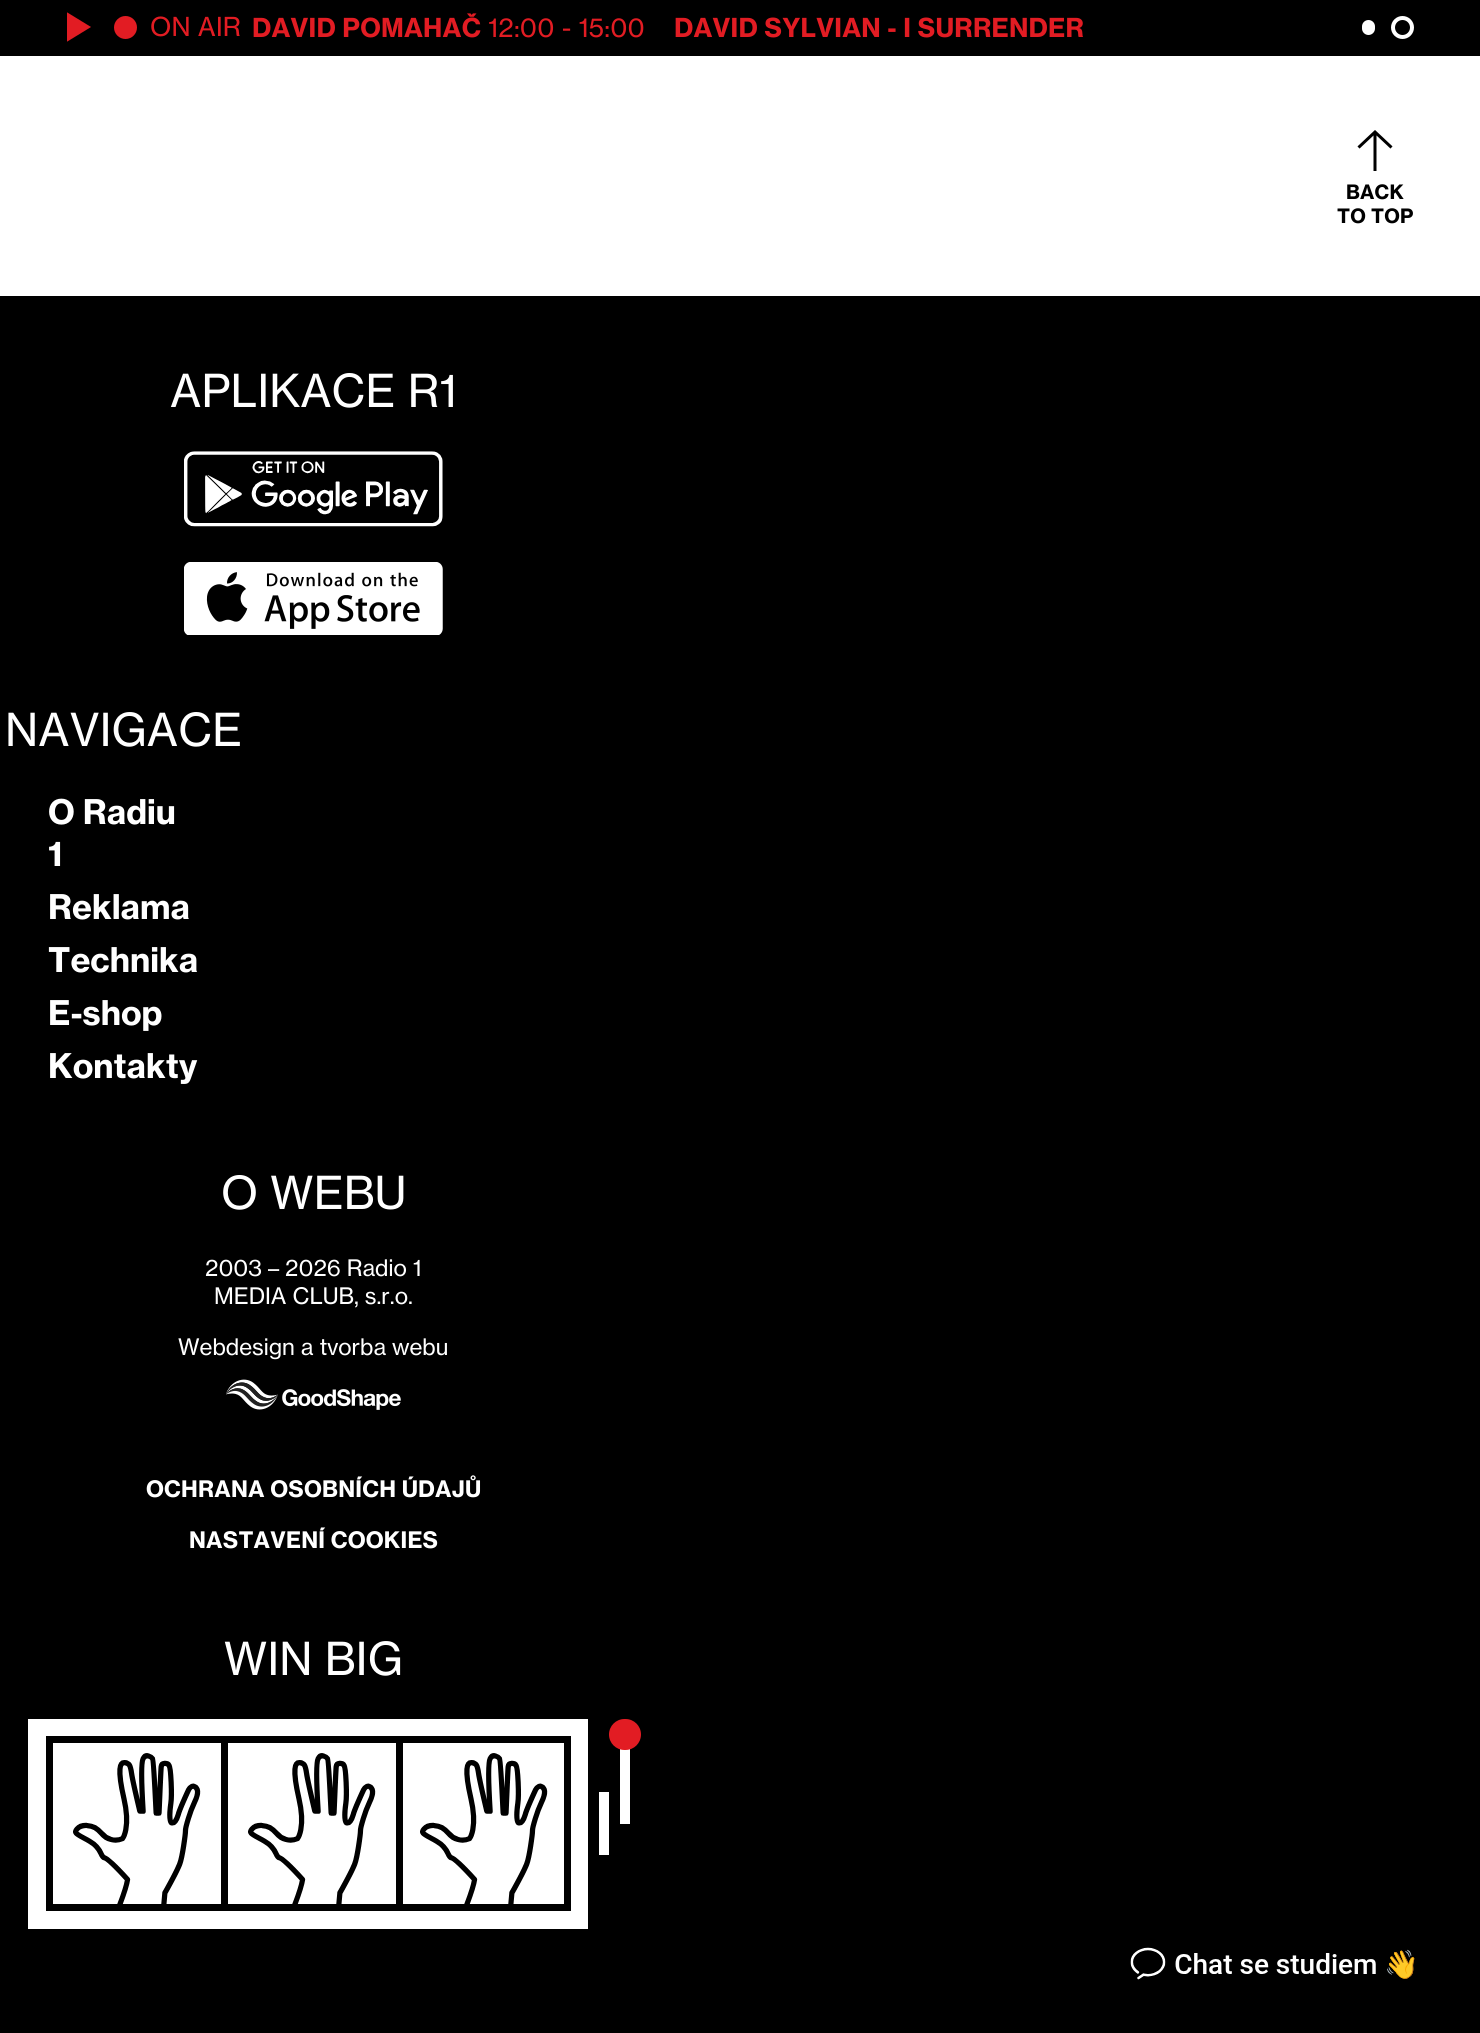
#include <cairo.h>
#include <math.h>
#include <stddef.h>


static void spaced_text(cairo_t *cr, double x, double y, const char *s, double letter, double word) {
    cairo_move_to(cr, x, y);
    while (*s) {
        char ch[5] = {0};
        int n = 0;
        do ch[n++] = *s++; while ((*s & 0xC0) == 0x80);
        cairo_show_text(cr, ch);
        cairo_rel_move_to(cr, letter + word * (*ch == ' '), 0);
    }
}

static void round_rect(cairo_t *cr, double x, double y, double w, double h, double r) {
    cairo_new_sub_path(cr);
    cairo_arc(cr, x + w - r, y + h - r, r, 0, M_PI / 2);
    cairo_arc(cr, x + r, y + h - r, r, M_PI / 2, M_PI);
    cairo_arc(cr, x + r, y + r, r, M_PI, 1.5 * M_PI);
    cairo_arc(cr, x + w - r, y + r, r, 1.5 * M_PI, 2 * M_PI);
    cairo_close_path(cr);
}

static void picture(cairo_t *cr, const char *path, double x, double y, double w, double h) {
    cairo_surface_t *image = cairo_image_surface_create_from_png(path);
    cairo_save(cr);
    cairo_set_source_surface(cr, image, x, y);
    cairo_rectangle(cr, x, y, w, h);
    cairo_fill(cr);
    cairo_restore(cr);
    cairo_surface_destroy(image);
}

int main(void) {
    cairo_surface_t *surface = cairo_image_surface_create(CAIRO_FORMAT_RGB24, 1480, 2033);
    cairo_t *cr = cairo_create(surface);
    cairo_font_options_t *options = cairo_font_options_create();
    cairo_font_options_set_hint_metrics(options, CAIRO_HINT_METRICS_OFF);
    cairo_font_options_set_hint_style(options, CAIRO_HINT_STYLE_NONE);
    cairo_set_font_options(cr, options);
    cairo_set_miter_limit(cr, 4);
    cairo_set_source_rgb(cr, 1, 1, 1);
    cairo_paint(cr);
    cairo_set_source_rgb(cr, 0, 0, 0);
    cairo_rectangle(cr, 0, 0, 1480, 56);
    cairo_fill(cr);
    cairo_save(cr);
    cairo_rectangle(cr, 67, 12, 24, 30);
    cairo_clip(cr);
    cairo_set_source_rgb(cr, 0.886, 0.11, 0.137);
    cairo_new_path(cr);
    cairo_move_to(cr, 91, 27);
    cairo_line_to(cr, 66.5, 42);
    cairo_line_to(cr, 66.5, 12);
    cairo_close_path(cr);
    cairo_fill(cr);
    cairo_restore(cr);
    cairo_set_source_rgb(cr, 0.886, 0.11, 0.137);
    cairo_arc(cr, 125.5, 27.5, 11.5, 0, 2 * M_PI);
    cairo_fill(cr);
    cairo_select_font_face(cr, "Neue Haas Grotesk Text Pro", CAIRO_FONT_SLANT_NORMAL, CAIRO_FONT_WEIGHT_NORMAL);
    cairo_set_font_size(cr, 25.75);
    spaced_text(cr, 150, 36, "ON AIR", 0.2, 0);
    cairo_select_font_face(cr, "Neue Haas Grotesk Text Pro", CAIRO_FONT_SLANT_NORMAL, CAIRO_FONT_WEIGHT_BOLD);
    spaced_text(cr, 252, 37, "DAVID POMAHAČ", 0.2, 0);
    cairo_select_font_face(cr, "Neue Haas Grotesk Text Pro", CAIRO_FONT_SLANT_NORMAL, CAIRO_FONT_WEIGHT_NORMAL);
    spaced_text(cr, 488, 37, "12:00 - 15:00", 0.2, 0);
    cairo_select_font_face(cr, "Neue Haas Grotesk Text Pro", CAIRO_FONT_SLANT_NORMAL, CAIRO_FONT_WEIGHT_BOLD);
    spaced_text(cr, 674, 37, "DAVID SYLVIAN - I SURRENDER", 0.2, 0);
    cairo_set_source_rgb(cr, 1, 1, 1);
    round_rect(cr, 1360, 18, 17, 19, 8.5);
    cairo_fill_preserve(cr);
    cairo_set_source_rgb(cr, 0, 0, 0);
    cairo_set_line_width(cr, 4);
    cairo_stroke(cr);
    cairo_arc(cr, 1402.5, 27.5, 9.5, 0, 2 * M_PI);
    cairo_set_source_rgb(cr, 1, 1, 1);
    cairo_stroke(cr);
    cairo_new_path(cr);
    cairo_move_to(cr, 1391.5, 147.5);
    cairo_line_to(cr, 1375, 132);
    cairo_line_to(cr, 1358.5, 147.5);
    cairo_move_to(cr, 1375, 132);
    cairo_line_to(cr, 1375, 171);
    cairo_set_source_rgb(cr, 0, 0, 0);
    cairo_set_line_width(cr, 3);
    cairo_stroke(cr);
    cairo_set_font_size(cr, 19.5);
    spaced_text(cr, 1346, 199, "BACK", 0.2, 0);
    spaced_text(cr, 1337, 223, "TO TOP", 0.2, 0);
    cairo_rectangle(cr, 0, 296, 1480, 1737);
    cairo_fill(cr);
    cairo_select_font_face(cr, "Neue Haas Grotesk Text Pro", CAIRO_FONT_SLANT_NORMAL, CAIRO_FONT_WEIGHT_NORMAL);
    cairo_set_font_size(cr, 44.75);
    cairo_set_source_rgb(cr, 1, 1, 1);
    spaced_text(cr, 170, 407, "APLIKACE R1", 0.2, 0);
    picture(cr, "img1.png", 184, 451, 259, 76);
    picture(cr, "img2.png", 184, 562, 259, 73);
    spaced_text(cr, 5, 746, "NAVIGACE", 0.2, 0);
    cairo_select_font_face(cr, "Neue Haas Grotesk Text Pro", CAIRO_FONT_SLANT_NORMAL, CAIRO_FONT_WEIGHT_BOLD);
    cairo_set_font_size(cr, 33.5);
    cairo_move_to(cr, 48, 824);
    cairo_show_text(cr, "O Radiu");
    cairo_move_to(cr, 48, 866);
    cairo_show_text(cr, "1");
    cairo_move_to(cr, 48, 919);
    cairo_show_text(cr, "Reklama");
    cairo_move_to(cr, 48, 972);
    cairo_show_text(cr, "Technika");
    cairo_move_to(cr, 48, 1025);
    cairo_show_text(cr, "E-shop");
    cairo_move_to(cr, 48, 1078);
    cairo_show_text(cr, "Kontakty");
    cairo_select_font_face(cr, "Neue Haas Grotesk Text Pro", CAIRO_FONT_SLANT_NORMAL, CAIRO_FONT_WEIGHT_NORMAL);
    cairo_set_font_size(cr, 44.75);
    spaced_text(cr, 221, 1209, "O WEBU", 0.2, 0);
    cairo_set_font_size(cr, 22.4);
    cairo_move_to(cr, 205, 1276);
    cairo_show_text(cr, "2003 – 2026 Radio 1");
    cairo_move_to(cr, 214, 1304);
    cairo_show_text(cr, "MEDIA CLUB, s.r.o.");
    cairo_move_to(cr, 178, 1355);
    cairo_show_text(cr, "Webdesign a tvorba webu");
    picture(cr, "img3.png", 226, 1379, 175, 31);
    cairo_select_font_face(cr, "Neue Haas Grotesk Text Pro", CAIRO_FONT_SLANT_NORMAL, CAIRO_FONT_WEIGHT_BOLD);
    spaced_text(cr, 146, 1497, "OCHRANA OSOBNÍCH ÚDAJŮ", 0.2, 0);
    spaced_text(cr, 189, 1548, "NASTAVENÍ COOKIES", 0.2, 0);
    cairo_select_font_face(cr, "Neue Haas Grotesk Text Pro", CAIRO_FONT_SLANT_NORMAL, CAIRO_FONT_WEIGHT_NORMAL);
    cairo_set_font_size(cr, 44.75);
    spaced_text(cr, 224, 1675, "WIN BIG", 0.2, 0);
    cairo_rectangle(cr, 28, 1719, 560, 210);
    cairo_fill(cr);
    picture(cr, "img4.png", 73, 1753, 128, 151);
    cairo_set_source_rgb(cr, 0, 0, 0);
    cairo_rectangle(cr, 46, 1736, 350, 7);
    cairo_fill(cr);
    cairo_rectangle(cr, 46, 1904, 350, 7);
    cairo_fill(cr);
    cairo_rectangle(cr, 46, 1736, 7, 175);
    cairo_fill(cr);
    picture(cr, "img4.png", 248, 1753, 128, 151);
    cairo_rectangle(cr, 221, 1736, 7, 175);
    cairo_fill(cr);
    picture(cr, "img4.png", 420, 1753, 128, 151);
    cairo_rectangle(cr, 399.5, 1739.5, 168, 168);
    cairo_set_line_width(cr, 7);
    cairo_stroke(cr);
    cairo_set_source_rgb(cr, 1, 1, 1);
    cairo_rectangle(cr, 599, 1792, 10, 63);
    cairo_fill(cr);
    cairo_rectangle(cr, 620, 1749, 10, 75);
    cairo_fill(cr);
    cairo_set_source_rgb(cr, 0.886, 0.11, 0.137);
    round_rect(cr, 609, 1719, 32, 31, 15.5);
    cairo_fill(cr);
    picture(cr, "img5.png", 1130, 1947, 285, 33);
    cairo_surface_write_to_png(surface, "page.png");
    cairo_font_options_destroy(options);
    cairo_destroy(cr);
    cairo_surface_destroy(surface);
    return 0;
}
